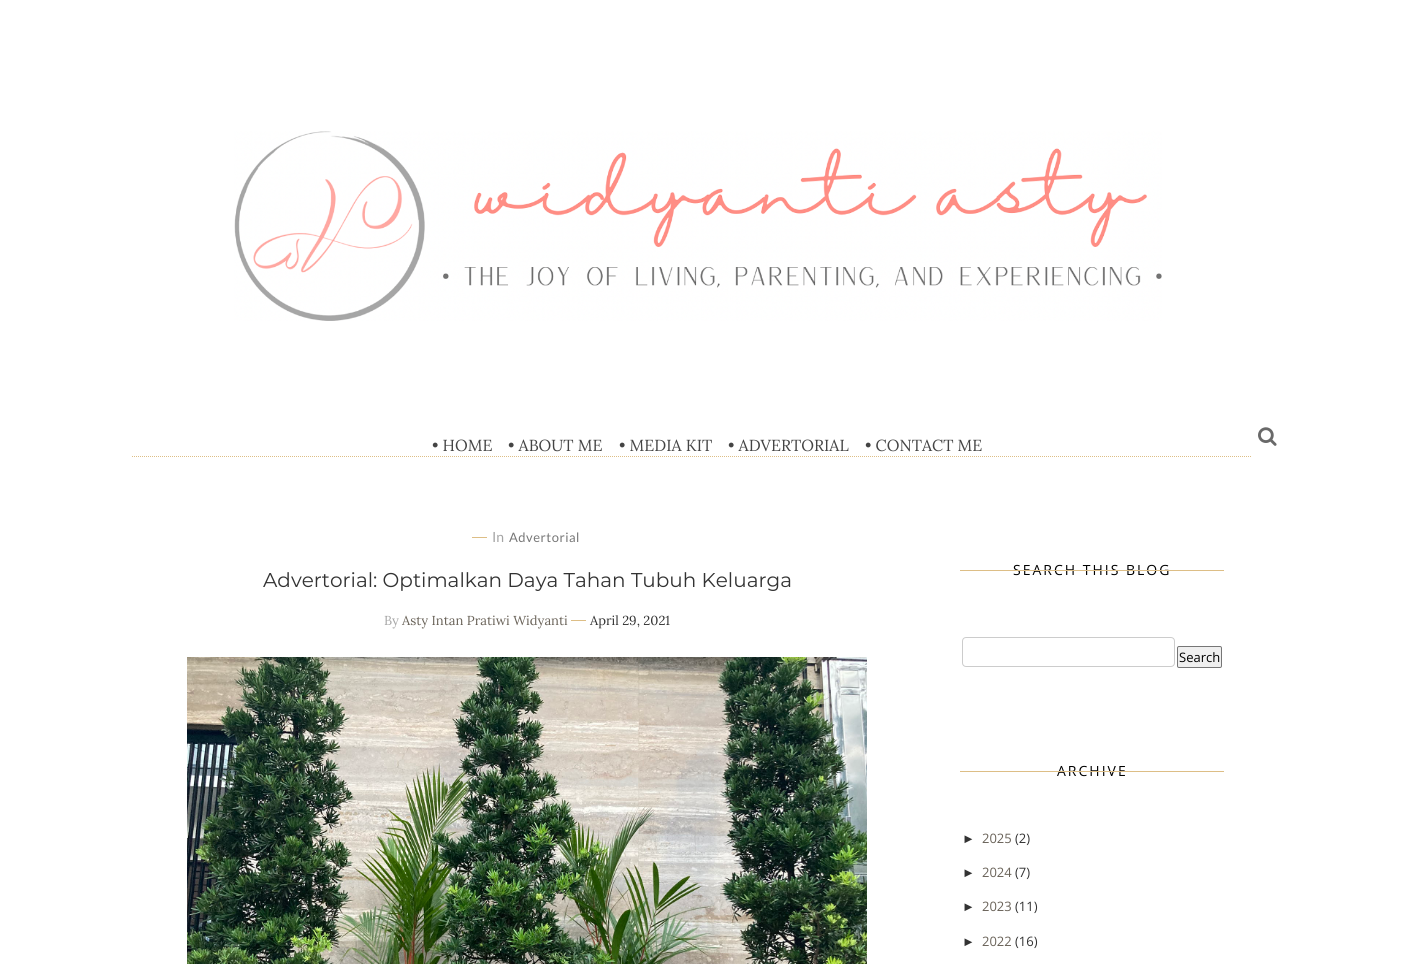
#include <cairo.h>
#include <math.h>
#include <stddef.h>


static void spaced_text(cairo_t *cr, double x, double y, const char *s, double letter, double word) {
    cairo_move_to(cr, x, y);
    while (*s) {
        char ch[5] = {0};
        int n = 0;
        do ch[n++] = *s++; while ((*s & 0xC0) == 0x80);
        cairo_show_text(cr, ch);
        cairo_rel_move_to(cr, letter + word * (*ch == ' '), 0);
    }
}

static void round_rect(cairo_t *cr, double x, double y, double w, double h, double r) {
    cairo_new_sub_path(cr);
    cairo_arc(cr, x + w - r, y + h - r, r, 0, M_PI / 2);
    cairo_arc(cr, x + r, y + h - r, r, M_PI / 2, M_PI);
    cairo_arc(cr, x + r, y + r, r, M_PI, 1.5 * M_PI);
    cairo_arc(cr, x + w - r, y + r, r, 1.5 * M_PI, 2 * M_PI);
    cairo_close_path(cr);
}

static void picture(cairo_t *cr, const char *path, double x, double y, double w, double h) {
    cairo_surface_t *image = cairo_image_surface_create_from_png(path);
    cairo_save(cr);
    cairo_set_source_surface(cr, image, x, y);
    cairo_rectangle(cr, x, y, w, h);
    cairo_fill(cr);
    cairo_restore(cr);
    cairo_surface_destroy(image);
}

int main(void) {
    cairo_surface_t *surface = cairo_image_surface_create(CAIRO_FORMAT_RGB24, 1414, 964);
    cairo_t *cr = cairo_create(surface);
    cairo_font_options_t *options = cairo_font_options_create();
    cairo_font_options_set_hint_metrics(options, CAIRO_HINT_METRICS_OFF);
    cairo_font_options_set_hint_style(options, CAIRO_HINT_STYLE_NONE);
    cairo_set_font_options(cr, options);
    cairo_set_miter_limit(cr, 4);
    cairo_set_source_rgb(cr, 1, 1, 1);
    cairo_paint(cr);
    cairo_new_path(cr);
    cairo_move_to(cr, 132, 456.5);
    cairo_line_to(cr, 1282, 456.5);
    cairo_set_source_rgb(cr, 0.867, 0.745, 0.525);
    cairo_set_line_width(cr, 1);
    cairo_set_dash(cr, (double[]){1, 1}, 2, 0);
    cairo_stroke(cr);
    picture(cr, "img1.png", 234, 131, 928, 190);
    cairo_select_font_face(cr, "Lora", CAIRO_FONT_SLANT_NORMAL, CAIRO_FONT_WEIGHT_NORMAL);
    cairo_set_font_size(cr, 16);
    cairo_set_source_rgb(cr, 0.267, 0.267, 0.267);
    cairo_move_to(cr, 432, 451);
    cairo_show_text(cr, "• HOME");
    cairo_move_to(cr, 508, 451);
    cairo_show_text(cr, "• ABOUT ME");
    cairo_move_to(cr, 619, 451);
    cairo_show_text(cr, "• MEDIA KIT");
    cairo_move_to(cr, 728, 451);
    cairo_show_text(cr, "• ADVERTORIAL");
    cairo_move_to(cr, 865, 451);
    cairo_show_text(cr, "• CONTACT ME");
    cairo_set_source_rgb(cr, 1, 1, 1);
    cairo_rectangle(cr, 1252, 456, 29, 1);
    cairo_fill(cr);
    picture(cr, "img2.png", 1258, 427, 19, 19);
    cairo_set_source_rgb(cr, 0.867, 0.745, 0.525);
    cairo_rectangle(cr, 472, 537, 15, 1);
    cairo_fill(cr);
    cairo_select_font_face(cr, "Lato", CAIRO_FONT_SLANT_NORMAL, CAIRO_FONT_WEIGHT_NORMAL);
    cairo_set_font_size(cr, 14);
    cairo_set_source_rgb(cr, 0.647, 0.647, 0.647);
    cairo_move_to(cr, 492, 542);
    cairo_show_text(cr, "In");
    cairo_set_font_size(cr, 13);
    cairo_set_source_rgb(cr, 0.467, 0.467, 0.467);
    spaced_text(cr, 509, 542, "Advertorial", 0.5, 0);
    cairo_select_font_face(cr, "Montserrat Thin", CAIRO_FONT_SLANT_NORMAL, CAIRO_FONT_WEIGHT_NORMAL);
    cairo_set_font_size(cr, 20);
    cairo_set_source_rgb(cr, 0.2, 0.2, 0.2);
    cairo_move_to(cr, 263, 587);
    cairo_show_text(cr, "Advertorial: Optimalkan Daya Tahan Tubuh Keluarga");
    cairo_select_font_face(cr, "Lora", CAIRO_FONT_SLANT_NORMAL, CAIRO_FONT_WEIGHT_NORMAL);
    cairo_set_font_size(cr, 13);
    cairo_set_source_rgb(cr, 0.647, 0.647, 0.647);
    cairo_move_to(cr, 384, 625);
    cairo_show_text(cr, "By");
    cairo_set_source_rgb(cr, 0.416, 0.388, 0.349);
    cairo_move_to(cr, 402, 625);
    cairo_show_text(cr, "Asty Intan Pratiwi Widyanti");
    cairo_set_source_rgb(cr, 0.867, 0.745, 0.525);
    cairo_rectangle(cr, 571, 620, 15, 1);
    cairo_fill(cr);
    cairo_set_source_rgb(cr, 0.2, 0.2, 0.2);
    cairo_move_to(cr, 590, 625);
    cairo_show_text(cr, "April 29, 2021");
    picture(cr, "img3.png", 187, 657, 680, 307);
    cairo_select_font_face(cr, "Open Sans", CAIRO_FONT_SLANT_NORMAL, CAIRO_FONT_WEIGHT_NORMAL);
    cairo_set_font_size(cr, 14);
    cairo_set_source_rgb(cr, 0, 0, 0);
    spaced_text(cr, 1013, 575, "SEARCH THIS BLOG", 2, 0);
    cairo_set_source_rgb(cr, 0.867, 0.745, 0.525);
    cairo_rectangle(cr, 960, 570, 264, 1);
    cairo_fill(cr);
    round_rect(cr, 962.5, 637.5, 212, 29, 3.5);
    cairo_set_source_rgb(cr, 0.8, 0.8, 0.8);
    cairo_set_dash(cr, NULL, 0, 0);
    cairo_stroke(cr);
    cairo_set_source_rgb(cr, 0.937, 0.937, 0.937);
    round_rect(cr, 1177.5, 646.5, 44, 21, 1.5);
    cairo_fill_preserve(cr);
    cairo_set_source_rgb(cr, 0.463, 0.463, 0.463);
    cairo_stroke(cr);
    cairo_set_font_size(cr, 13);
    cairo_set_source_rgb(cr, 0, 0, 0);
    cairo_move_to(cr, 1179, 662);
    cairo_show_text(cr, "Search");
    cairo_set_font_size(cr, 14);
    spaced_text(cr, 1057, 776, "ARCHIVE", 2, 0);
    cairo_set_source_rgb(cr, 0.867, 0.745, 0.525);
    cairo_rectangle(cr, 960, 771, 264, 1);
    cairo_fill(cr);
    cairo_select_font_face(cr, "Liberation Sans", CAIRO_FONT_SLANT_NORMAL, CAIRO_FONT_WEIGHT_NORMAL);
    cairo_set_font_size(cr, 13);
    cairo_set_source_rgb(cr, 0.2, 0.2, 0.2);
    cairo_move_to(cr, 962, 843);
    cairo_show_text(cr, "►");
    cairo_select_font_face(cr, "Open Sans", CAIRO_FONT_SLANT_NORMAL, CAIRO_FONT_WEIGHT_NORMAL);
    cairo_set_source_rgb(cr, 0.416, 0.388, 0.349);
    cairo_move_to(cr, 982, 843);
    cairo_show_text(cr, "2025");
    cairo_set_source_rgb(cr, 0.2, 0.2, 0.2);
    cairo_move_to(cr, 1015, 843);
    cairo_show_text(cr, "(2)");
    cairo_select_font_face(cr, "Liberation Sans", CAIRO_FONT_SLANT_NORMAL, CAIRO_FONT_WEIGHT_NORMAL);
    cairo_move_to(cr, 962, 877);
    cairo_show_text(cr, "►");
    cairo_select_font_face(cr, "Open Sans", CAIRO_FONT_SLANT_NORMAL, CAIRO_FONT_WEIGHT_NORMAL);
    cairo_set_source_rgb(cr, 0.416, 0.388, 0.349);
    cairo_move_to(cr, 982, 877);
    cairo_show_text(cr, "2024");
    cairo_set_source_rgb(cr, 0.2, 0.2, 0.2);
    cairo_move_to(cr, 1015, 877);
    cairo_show_text(cr, "(7)");
    cairo_select_font_face(cr, "Liberation Sans", CAIRO_FONT_SLANT_NORMAL, CAIRO_FONT_WEIGHT_NORMAL);
    cairo_move_to(cr, 962, 911);
    cairo_show_text(cr, "►");
    cairo_select_font_face(cr, "Open Sans", CAIRO_FONT_SLANT_NORMAL, CAIRO_FONT_WEIGHT_NORMAL);
    cairo_set_source_rgb(cr, 0.416, 0.388, 0.349);
    cairo_move_to(cr, 982, 911);
    cairo_show_text(cr, "2023");
    cairo_set_source_rgb(cr, 0.2, 0.2, 0.2);
    cairo_move_to(cr, 1015, 911);
    cairo_show_text(cr, "(11)");
    cairo_select_font_face(cr, "Liberation Sans", CAIRO_FONT_SLANT_NORMAL, CAIRO_FONT_WEIGHT_NORMAL);
    cairo_move_to(cr, 962, 946);
    cairo_show_text(cr, "►");
    cairo_select_font_face(cr, "Open Sans", CAIRO_FONT_SLANT_NORMAL, CAIRO_FONT_WEIGHT_NORMAL);
    cairo_set_source_rgb(cr, 0.416, 0.388, 0.349);
    cairo_move_to(cr, 982, 946);
    cairo_show_text(cr, "2022");
    cairo_set_source_rgb(cr, 0.2, 0.2, 0.2);
    cairo_move_to(cr, 1015, 946);
    cairo_show_text(cr, "(16)");
    cairo_surface_write_to_png(surface, "page.png");
    cairo_font_options_destroy(options);
    cairo_destroy(cr);
    cairo_surface_destroy(surface);
    return 0;
}
